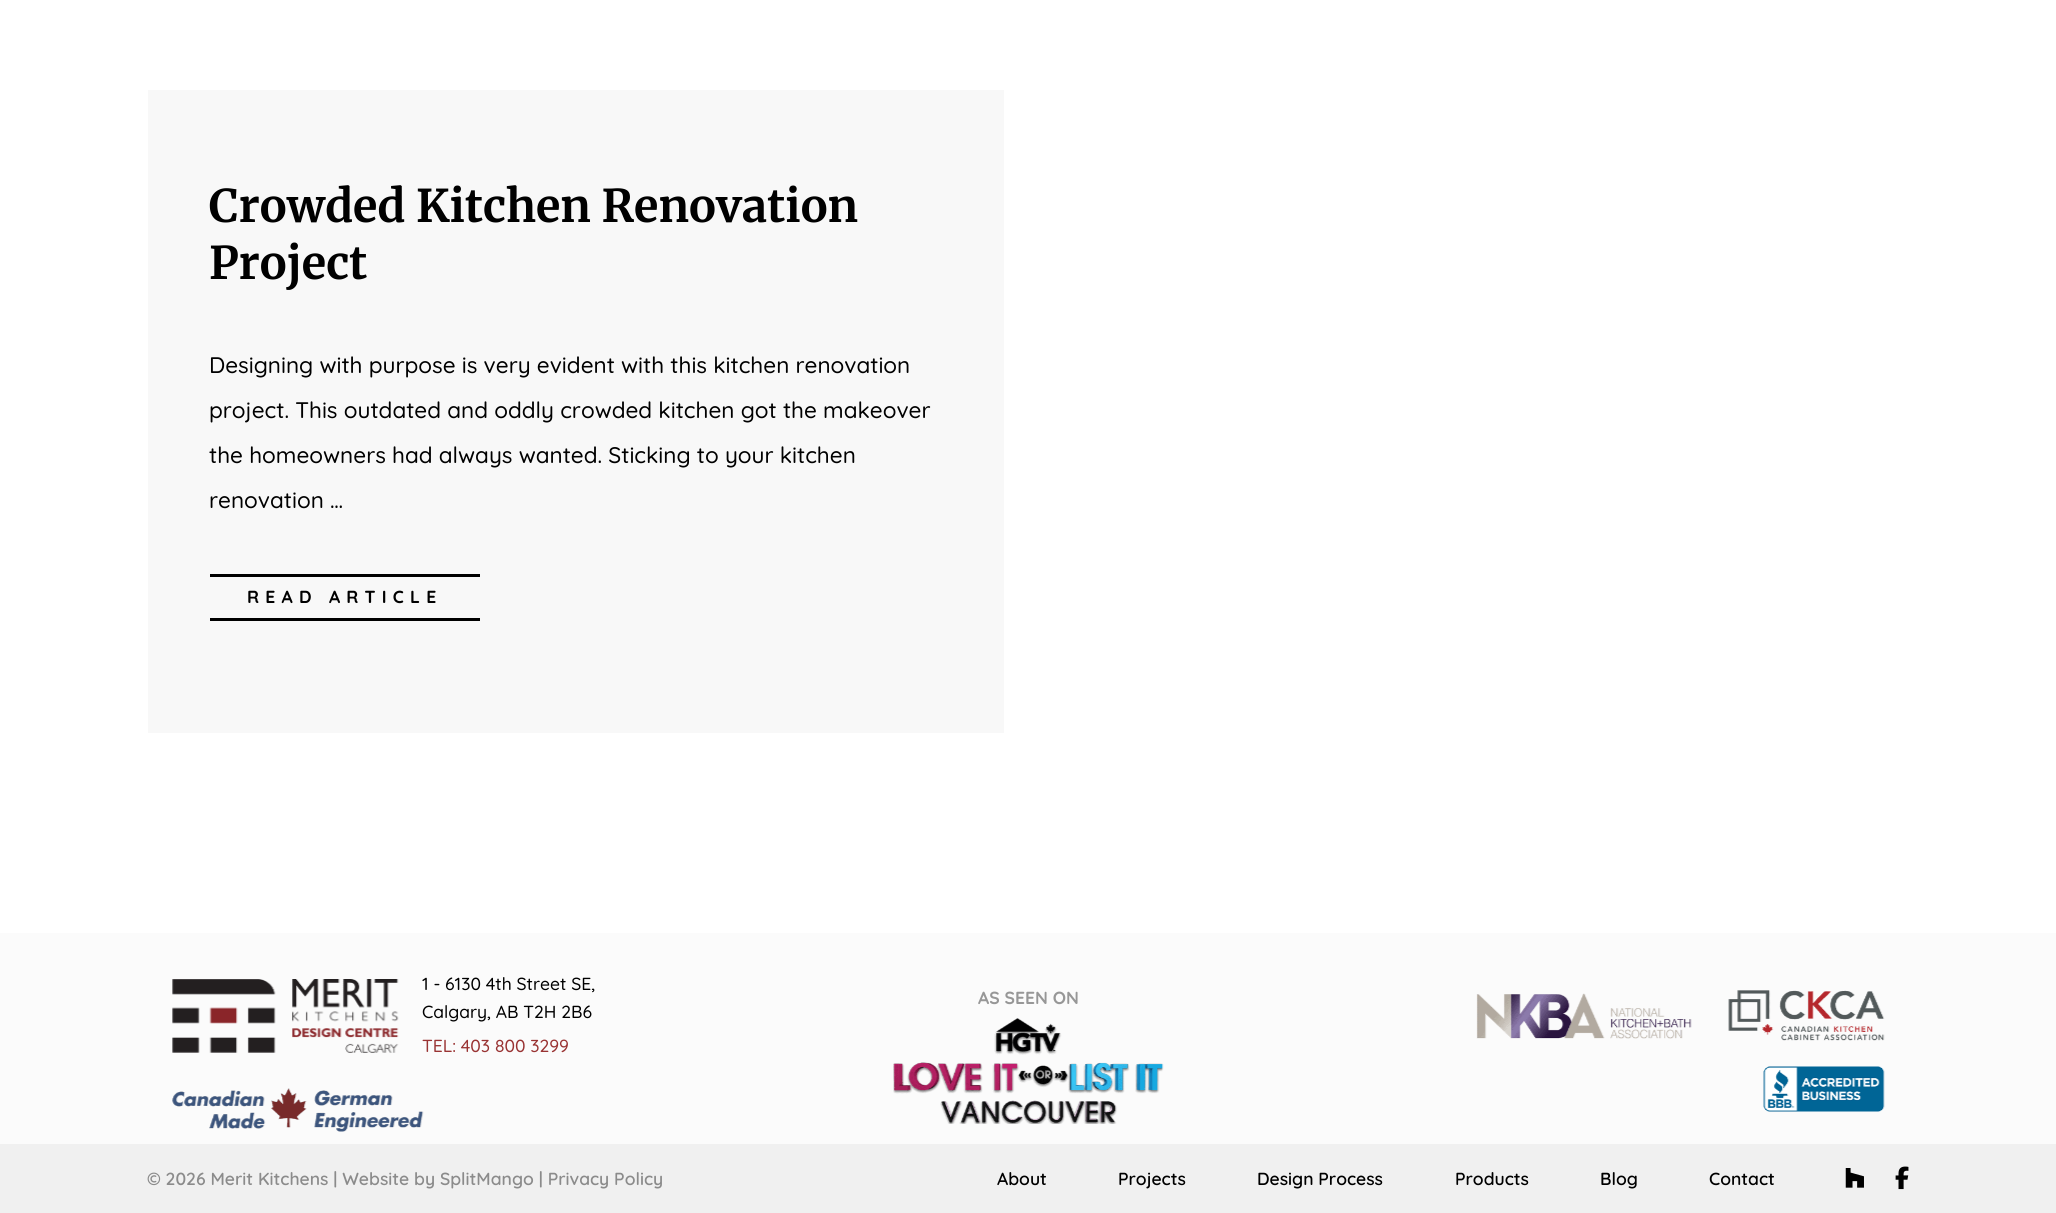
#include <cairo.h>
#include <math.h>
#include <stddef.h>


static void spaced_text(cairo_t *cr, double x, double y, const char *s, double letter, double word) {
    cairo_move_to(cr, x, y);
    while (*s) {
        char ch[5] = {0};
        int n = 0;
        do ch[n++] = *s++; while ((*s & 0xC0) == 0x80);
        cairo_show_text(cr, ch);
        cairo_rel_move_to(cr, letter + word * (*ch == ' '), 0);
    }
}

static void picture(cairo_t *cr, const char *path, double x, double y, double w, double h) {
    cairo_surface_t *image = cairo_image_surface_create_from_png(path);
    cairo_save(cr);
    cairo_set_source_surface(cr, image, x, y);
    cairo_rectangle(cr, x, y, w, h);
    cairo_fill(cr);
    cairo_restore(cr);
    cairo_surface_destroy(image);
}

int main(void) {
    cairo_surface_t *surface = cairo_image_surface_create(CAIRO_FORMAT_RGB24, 2056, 1213);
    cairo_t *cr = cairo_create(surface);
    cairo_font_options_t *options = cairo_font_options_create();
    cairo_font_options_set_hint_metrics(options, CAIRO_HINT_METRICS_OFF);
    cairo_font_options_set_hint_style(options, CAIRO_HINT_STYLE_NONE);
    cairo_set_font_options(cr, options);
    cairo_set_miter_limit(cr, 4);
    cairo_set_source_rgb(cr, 1, 1, 1);
    cairo_paint(cr);
    cairo_set_source_rgb(cr, 0.969, 0.969, 0.969);
    cairo_rectangle(cr, 148, 90, 856, 643);
    cairo_fill(cr);
    cairo_select_font_face(cr, "Merriweather", CAIRO_FONT_SLANT_NORMAL, CAIRO_FONT_WEIGHT_BOLD);
    cairo_set_font_size(cr, 45);
    cairo_set_source_rgb(cr, 0, 0, 0);
    cairo_move_to(cr, 209, 222);
    cairo_show_text(cr, "Crowded Kitchen Renovation");
    cairo_move_to(cr, 209, 279);
    cairo_show_text(cr, "Project");
    cairo_select_font_face(cr, "Quicksand Medium", CAIRO_FONT_SLANT_NORMAL, CAIRO_FONT_WEIGHT_NORMAL);
    cairo_set_font_size(cr, 22.5);
    cairo_move_to(cr, 209, 373);
    cairo_show_text(cr, "Designing with purpose is very evident with this kitchen renovation");
    cairo_move_to(cr, 209, 418);
    cairo_show_text(cr, "project. This outdated and oddly crowded kitchen got the makeover");
    cairo_move_to(cr, 209, 463);
    cairo_show_text(cr, "the homeowners had always wanted. Sticking to your kitchen");
    cairo_move_to(cr, 209, 508);
    cairo_show_text(cr, "renovation …");
    cairo_rectangle(cr, 210, 574, 270, 3);
    cairo_fill(cr);
    cairo_rectangle(cr, 210, 618, 270, 3);
    cairo_fill(cr);
    cairo_select_font_face(cr, "Quicksand", CAIRO_FONT_SLANT_NORMAL, CAIRO_FONT_WEIGHT_BOLD);
    cairo_set_font_size(cr, 17.5);
    spaced_text(cr, 247, 603, "READ ARTICLE", 6.25, 0);
    cairo_set_source_rgb(cr, 0.984, 0.984, 0.984);
    cairo_rectangle(cr, 0, 933, 2056, 211);
    cairo_fill(cr);
    picture(cr, "img1.png", 172, 979, 227, 74);
    cairo_select_font_face(cr, "Quicksand Medium", CAIRO_FONT_SLANT_NORMAL, CAIRO_FONT_WEIGHT_NORMAL);
    cairo_set_source_rgb(cr, 0, 0, 0);
    cairo_move_to(cr, 422, 990);
    cairo_show_text(cr, "1 - 6130 4th Street SE,");
    cairo_move_to(cr, 422, 1018);
    cairo_show_text(cr, "Calgary, AB T2H 2B6");
    cairo_set_source_rgb(cr, 0.6, 0.2, 0.2);
    cairo_move_to(cr, 422, 1052);
    cairo_show_text(cr, "TEL: 403 800 3299");
    picture(cr, "img2.png", 172, 1088, 252, 44);
    cairo_select_font_face(cr, "Quicksand", CAIRO_FONT_SLANT_NORMAL, CAIRO_FONT_WEIGHT_BOLD);
    cairo_set_source_rgb(cr, 0.592, 0.592, 0.592);
    cairo_move_to(cr, 978, 1004);
    cairo_show_text(cr, "AS SEEN ON");
    picture(cr, "img3.png", 893, 1018, 271, 106);
    picture(cr, "img4.png", 1476, 993, 216, 46);
    picture(cr, "img5.png", 1728, 990, 157, 51);
    picture(cr, "img6.png", 1763, 1066, 122, 46);
    cairo_set_source_rgb(cr, 0.941, 0.941, 0.941);
    cairo_rectangle(cr, 0, 1144, 2056, 69);
    cairo_fill(cr);
    cairo_select_font_face(cr, "Quicksand SemiBold", CAIRO_FONT_SLANT_NORMAL, CAIRO_FONT_WEIGHT_NORMAL);
    cairo_set_source_rgb(cr, 0.545, 0.545, 0.545);
    cairo_move_to(cr, 147, 1185);
    cairo_show_text(cr, "© 2026 Merit Kitchens | Website by SplitMango | Privacy Policy");
    cairo_set_source_rgb(cr, 0, 0, 0);
    cairo_move_to(cr, 997, 1185);
    cairo_show_text(cr, "About");
    cairo_move_to(cr, 1118, 1185);
    cairo_show_text(cr, "Projects");
    cairo_move_to(cr, 1257, 1185);
    cairo_show_text(cr, "Design Process");
    cairo_move_to(cr, 1455, 1185);
    cairo_show_text(cr, "Products");
    cairo_move_to(cr, 1600, 1185);
    cairo_show_text(cr, "Blog");
    cairo_move_to(cr, 1709, 1185);
    cairo_show_text(cr, "Contact");
    picture(cr, "img7.png", 1845, 1168, 19, 20);
    picture(cr, "img8.png", 1895, 1166, 14, 24);
    cairo_surface_write_to_png(surface, "page.png");
    cairo_font_options_destroy(options);
    cairo_destroy(cr);
    cairo_surface_destroy(surface);
    return 0;
}
